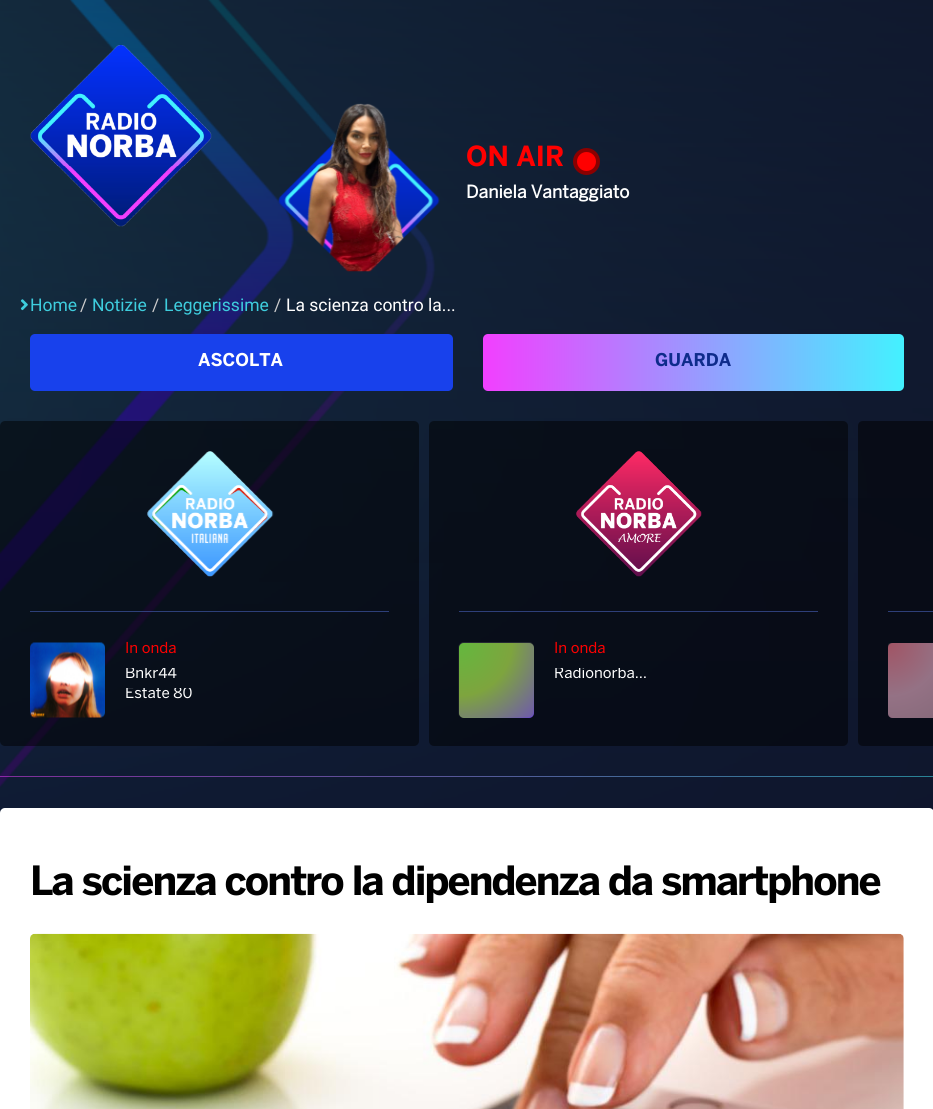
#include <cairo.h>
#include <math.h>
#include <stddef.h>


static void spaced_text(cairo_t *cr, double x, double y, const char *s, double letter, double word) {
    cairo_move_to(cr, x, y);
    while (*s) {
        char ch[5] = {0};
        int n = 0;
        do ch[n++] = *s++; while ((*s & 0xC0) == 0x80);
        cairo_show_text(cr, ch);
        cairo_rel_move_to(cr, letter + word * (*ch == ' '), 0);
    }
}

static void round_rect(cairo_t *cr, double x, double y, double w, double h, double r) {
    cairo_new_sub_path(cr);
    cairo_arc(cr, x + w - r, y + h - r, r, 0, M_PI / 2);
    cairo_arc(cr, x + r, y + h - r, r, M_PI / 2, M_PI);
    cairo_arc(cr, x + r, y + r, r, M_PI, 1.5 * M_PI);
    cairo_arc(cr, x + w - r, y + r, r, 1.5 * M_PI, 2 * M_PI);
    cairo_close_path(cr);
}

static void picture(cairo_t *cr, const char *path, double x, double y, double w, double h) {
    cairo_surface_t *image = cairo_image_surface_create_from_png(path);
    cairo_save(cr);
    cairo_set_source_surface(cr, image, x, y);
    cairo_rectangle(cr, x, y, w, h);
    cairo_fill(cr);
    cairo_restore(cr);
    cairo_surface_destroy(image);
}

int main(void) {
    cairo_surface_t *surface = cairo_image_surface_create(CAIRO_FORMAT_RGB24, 933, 1109);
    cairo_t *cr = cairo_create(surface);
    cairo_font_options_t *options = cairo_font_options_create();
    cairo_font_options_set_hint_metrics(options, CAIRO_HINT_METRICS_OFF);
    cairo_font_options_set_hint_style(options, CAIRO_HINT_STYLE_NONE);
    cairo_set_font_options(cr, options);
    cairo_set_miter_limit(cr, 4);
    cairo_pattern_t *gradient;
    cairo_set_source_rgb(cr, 1, 1, 1);
    cairo_paint(cr);
    picture(cr, "img1.png", 0, 0, 933, 813);
    picture(cr, "img2.png", 30, 45, 182, 182);
    picture(cr, "img3.png", 278, 103, 162, 169);
    cairo_select_font_face(cr, "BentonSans", CAIRO_FONT_SLANT_NORMAL, CAIRO_FONT_WEIGHT_BOLD);
    cairo_set_font_size(cr, 27.5);
    cairo_set_source_rgb(cr, 1, 0, 0);
    cairo_move_to(cr, 466, 166);
    cairo_show_text(cr, "ON AIR");
    cairo_new_path(cr);
    cairo_arc(cr, 586.5, 161.5, 11.5, 0, 2 * M_PI);
    cairo_fill_preserve(cr);
    cairo_set_source_rgb(cr, 0.545, 0, 0);
    cairo_set_line_width(cr, 4);
    cairo_stroke(cr);
    cairo_select_font_face(cr, "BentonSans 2", CAIRO_FONT_SLANT_NORMAL, CAIRO_FONT_WEIGHT_BOLD);
    cairo_set_font_size(cr, 17.5);
    cairo_set_source_rgb(cr, 1, 1, 1);
    cairo_move_to(cr, 466, 198);
    cairo_show_text(cr, "Daniela Vantaggiato");
    picture(cr, "img4.png", 20, 299, 8, 12);
    cairo_select_font_face(cr, "Roboto", CAIRO_FONT_SLANT_NORMAL, CAIRO_FONT_WEIGHT_NORMAL);
    cairo_set_source_rgb(cr, 0.243, 0.804, 0.867);
    cairo_move_to(cr, 30, 311);
    cairo_show_text(cr, "Home");
    cairo_set_source_rgb(cr, 0.8, 0.8, 0.8);
    cairo_move_to(cr, 80, 311);
    cairo_show_text(cr, "/");
    cairo_set_source_rgb(cr, 0.243, 0.804, 0.867);
    cairo_move_to(cr, 92, 311);
    cairo_show_text(cr, "Notizie");
    cairo_set_source_rgb(cr, 0.8, 0.8, 0.8);
    cairo_move_to(cr, 152, 311);
    cairo_show_text(cr, "/");
    cairo_set_source_rgb(cr, 0.243, 0.804, 0.867);
    cairo_move_to(cr, 164, 311);
    cairo_show_text(cr, "Leggerissime");
    cairo_set_source_rgb(cr, 0.8, 0.8, 0.8);
    cairo_move_to(cr, 274, 311);
    cairo_show_text(cr, "/");
    cairo_set_source_rgb(cr, 1, 1, 1);
    cairo_move_to(cr, 286, 311);
    cairo_show_text(cr, "La scienza contro la...");
    cairo_set_source_rgb(cr, 0.094, 0.255, 0.925);
    round_rect(cr, 30, 334, 423, 57, 5);
    cairo_fill(cr);
    cairo_select_font_face(cr, "BentonSans", CAIRO_FONT_SLANT_NORMAL, CAIRO_FONT_WEIGHT_BOLD);
    cairo_set_source_rgb(cr, 1, 1, 1);
    cairo_move_to(cr, 198, 366);
    cairo_show_text(cr, "ASCOLTA");
    gradient = cairo_pattern_create_linear(483, 363, 904, 363);
    cairo_pattern_add_color_stop_rgba(gradient, 0, 0.949, 0.247, 1, 1);
    cairo_pattern_add_color_stop_rgba(gradient, 1, 0.263, 0.945, 1, 1);
    cairo_set_source(cr, gradient);
    cairo_pattern_destroy(gradient);
    round_rect(cr, 483, 334, 421, 57, 5);
    cairo_fill(cr);
    cairo_set_source_rgb(cr, 0.055, 0.169, 0.545);
    cairo_move_to(cr, 655, 366);
    cairo_show_text(cr, "GUARDA");
    cairo_set_source_rgba(cr, 0, 0, 0, 0.5);
    round_rect(cr, 0, 421, 419, 325, 5);
    cairo_fill(cr);
    cairo_set_source_rgba(cr, 0.243, 0.333, 0.635, 0.7);
    cairo_rectangle(cr, 30, 611, 359, 1);
    cairo_fill(cr);
    picture(cr, "img5.png", 147, 451, 127, 126);
    picture(cr, "img6.png", 30, 642, 75, 76);
    cairo_select_font_face(cr, "BentonSans", CAIRO_FONT_SLANT_NORMAL, CAIRO_FONT_WEIGHT_NORMAL);
    cairo_set_font_size(cr, 15);
    cairo_set_source_rgb(cr, 1, 0, 0);
    cairo_move_to(cr, 125, 653);
    cairo_show_text(cr, "In onda");
    cairo_save(cr);
    cairo_rectangle(cr, 125, 668, 68, 15);
    cairo_clip(cr);
    cairo_set_source_rgb(cr, 1, 1, 1);
    cairo_move_to(cr, 125, 678);
    cairo_show_text(cr, "Bnkr44");
    cairo_restore(cr);
    cairo_save(cr);
    cairo_rectangle(cr, 125, 688, 68, 15);
    cairo_clip(cr);
    cairo_set_source_rgb(cr, 1, 1, 1);
    cairo_move_to(cr, 125, 698);
    cairo_show_text(cr, "Estate 80");
    cairo_restore(cr);
    cairo_set_source_rgba(cr, 0, 0, 0, 0.5);
    round_rect(cr, 429, 421, 419, 325, 5);
    cairo_fill(cr);
    cairo_set_source_rgb(cr, 0.18, 0.247, 0.475);
    cairo_rectangle(cr, 459, 611, 359, 1);
    cairo_fill(cr);
    picture(cr, "img7.png", 576, 451, 126, 126);
    gradient = cairo_pattern_create_radial(459, 643, 0, 459, 643, 106);
    cairo_pattern_add_color_stop_rgba(gradient, 0, 0.306, 0.969, 0.016, 1);
    cairo_pattern_add_color_stop_rgba(gradient, 0.5, 0.514, 0.816, 0.016, 1);
    cairo_pattern_add_color_stop_rgba(gradient, 1, 0.396, 0.227, 0.886, 1);
    cairo_set_source(cr, gradient);
    cairo_pattern_destroy(gradient);
    round_rect(cr, 459, 643, 75, 75, 5);
    cairo_fill(cr);
    picture(cr, "img8.png", 458, 642, 76, 76);
    cairo_set_source_rgb(cr, 1, 0, 0);
    cairo_move_to(cr, 554, 653);
    cairo_show_text(cr, "In onda");
    cairo_save(cr);
    cairo_rectangle(cr, 554, 668, 94, 15);
    cairo_clip(cr);
    cairo_set_source_rgb(cr, 1, 1, 1);
    cairo_move_to(cr, 554, 678);
    cairo_show_text(cr, "Radionorba…");
    cairo_restore(cr);
    cairo_set_source_rgba(cr, 0, 0, 0, 0.5);
    cairo_new_path(cr);
    cairo_move_to(cr, 863, 421);
    cairo_line_to(cr, 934, 421);
    cairo_line_to(cr, 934, 746);
    cairo_line_to(cr, 863, 746);
    cairo_curve_to(cr, 860, 746, 858, 744, 858, 741);
    cairo_line_to(cr, 858, 426);
    cairo_curve_to(cr, 858, 423, 860, 421, 863, 421);
    cairo_close_path(cr);
    cairo_fill(cr);
    cairo_set_source_rgb(cr, 0.18, 0.247, 0.471);
    cairo_rectangle(cr, 888, 611, 45, 1);
    cairo_fill(cr);
    gradient = cairo_pattern_create_radial(888, 643, 0, 888, 643, 106);
    cairo_pattern_add_color_stop_rgba(gradient, 0, 0.792, 0.184, 0.314, 1);
    cairo_pattern_add_color_stop_rgba(gradient, 0.5, 0.69, 0.42, 0.569, 1);
    cairo_pattern_add_color_stop_rgba(gradient, 1, 0.545, 0.333, 0.459, 1);
    cairo_set_source(cr, gradient);
    cairo_pattern_destroy(gradient);
    cairo_new_path(cr);
    cairo_move_to(cr, 893, 643);
    cairo_line_to(cr, 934, 643);
    cairo_line_to(cr, 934, 718);
    cairo_line_to(cr, 893, 718);
    cairo_curve_to(cr, 890, 718, 888, 716, 888, 713);
    cairo_line_to(cr, 888, 648);
    cairo_curve_to(cr, 888, 645, 890, 643, 893, 643);
    cairo_close_path(cr);
    cairo_fill(cr);
    picture(cr, "img9.png", 888, 643, 45, 75);
    cairo_set_source_rgb(cr, 1, 1, 1);
    round_rect(cr, 0, 808, 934, 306, 5);
    cairo_fill(cr);
    cairo_select_font_face(cr, "BentonSans", CAIRO_FONT_SLANT_NORMAL, CAIRO_FONT_WEIGHT_BOLD);
    cairo_set_font_size(cr, 40);
    cairo_set_source_rgb(cr, 0, 0, 0);
    spaced_text(cr, 30, 895, "La scienza contro la dipendenza da smartphone", -1.9, 0);
    picture(cr, "img10.png", 30, 933, 874, 176);
    cairo_surface_write_to_png(surface, "page.png");
    cairo_font_options_destroy(options);
    cairo_destroy(cr);
    cairo_surface_destroy(surface);
    return 0;
}
